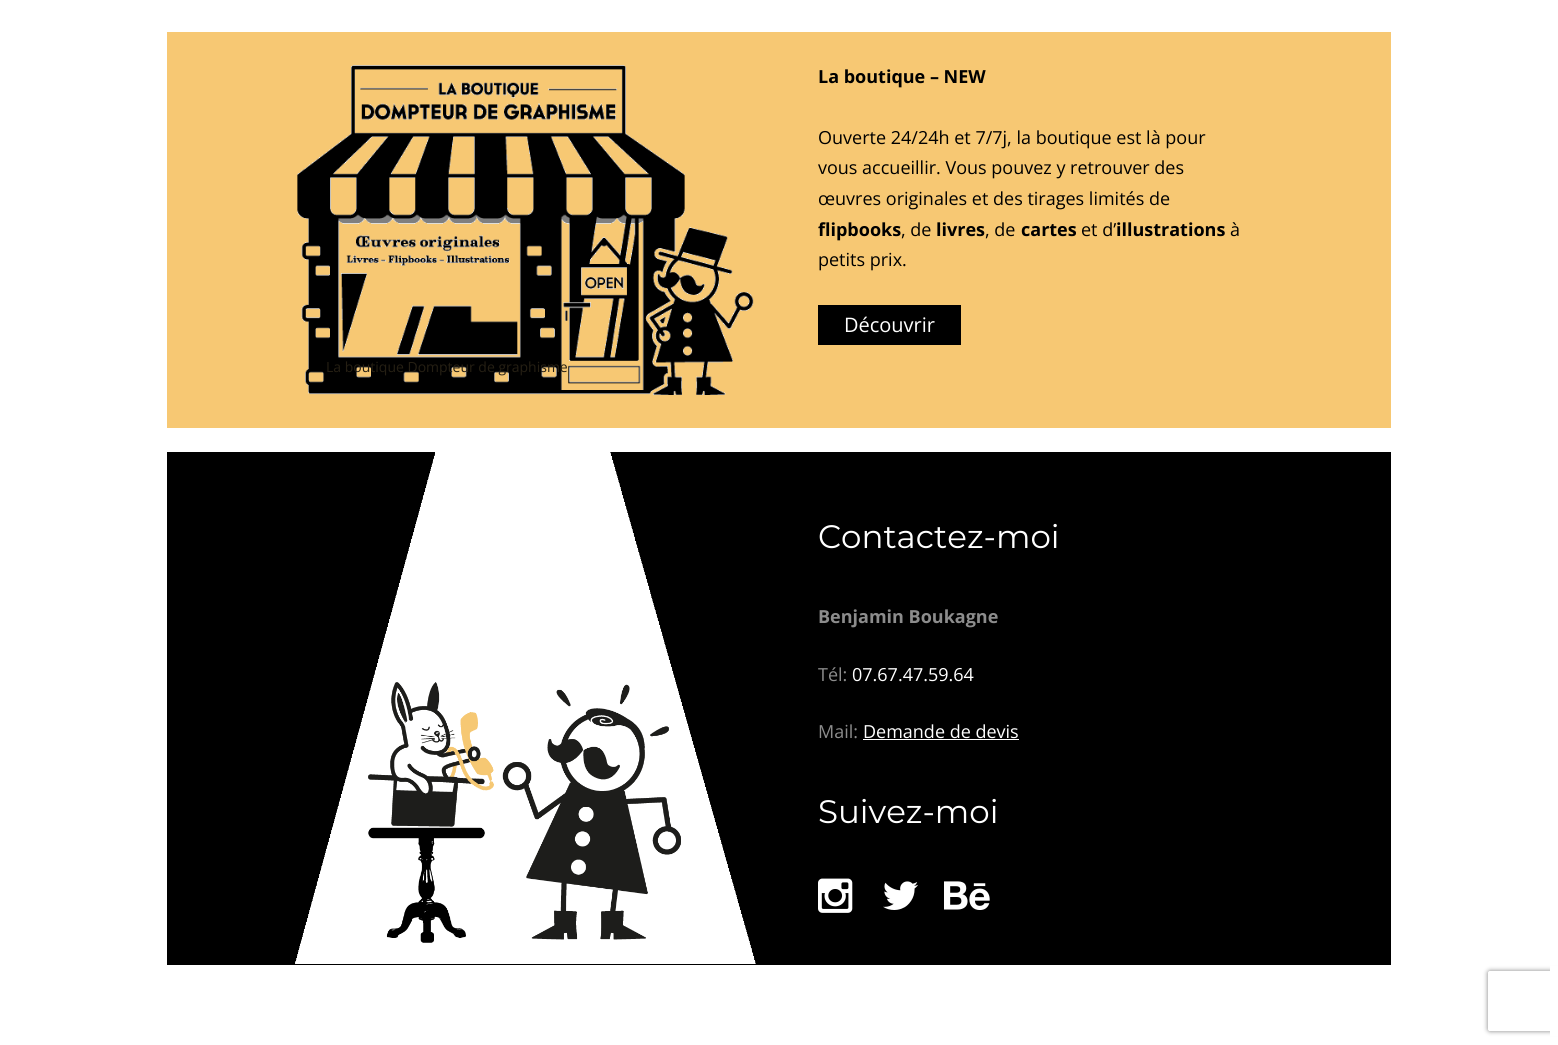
#include <cairo.h>
#include <math.h>
#include <stddef.h>


static void round_rect(cairo_t *cr, double x, double y, double w, double h, double r) {
    cairo_new_sub_path(cr);
    cairo_arc(cr, x + w - r, y + h - r, r, 0, M_PI / 2);
    cairo_arc(cr, x + r, y + h - r, r, M_PI / 2, M_PI);
    cairo_arc(cr, x + r, y + r, r, M_PI, 1.5 * M_PI);
    cairo_arc(cr, x + w - r, y + r, r, 1.5 * M_PI, 2 * M_PI);
    cairo_close_path(cr);
}

static void shadow(cairo_t *cr, double x, double y, double w, double h, double r, double blur, double alpha) {
    cairo_push_group_with_content(cr, CAIRO_CONTENT_ALPHA);
    cairo_set_operator(cr, CAIRO_OPERATOR_SOURCE);
    for (int i = 15; i >= -15 && fmin(w, h) + blur * i / 3 > 0; i -= 2) {
        double e = blur * i / 6;
        cairo_set_source_rgba(cr, 0, 0, 0, alpha * erfc((i - 1) / 8.5) / 2);
        round_rect(cr, x - e, y - e, w + 2 * e, h + 2 * e, fmax(0, fmin(r + e + blur * .6, fmin(w, h) / 2 + e)));
        cairo_fill(cr);
    }
    cairo_pattern_t *soft = cairo_pop_group(cr);
    cairo_mask(cr, soft);
    cairo_pattern_destroy(soft);
}

static void picture(cairo_t *cr, const char *path, double x, double y, double w, double h) {
    cairo_surface_t *image = cairo_image_surface_create_from_png(path);
    cairo_save(cr);
    cairo_set_source_surface(cr, image, x, y);
    cairo_rectangle(cr, x, y, w, h);
    cairo_fill(cr);
    cairo_restore(cr);
    cairo_surface_destroy(image);
}

int main(void) {
    cairo_surface_t *surface = cairo_image_surface_create(CAIRO_FORMAT_RGB24, 1558, 1045);
    cairo_t *cr = cairo_create(surface);
    cairo_font_options_t *options = cairo_font_options_create();
    cairo_font_options_set_hint_metrics(options, CAIRO_HINT_METRICS_OFF);
    cairo_font_options_set_hint_style(options, CAIRO_HINT_STYLE_NONE);
    cairo_set_font_options(cr, options);
    cairo_set_miter_limit(cr, 4);
    cairo_set_source_rgb(cr, 1, 1, 1);
    cairo_paint(cr);
    cairo_set_source_rgb(cr, 0.965, 0.784, 0.451);
    cairo_rectangle(cr, 167, 32, 1224, 396);
    cairo_fill(cr);
    cairo_select_font_face(cr, "Open Sans", CAIRO_FONT_SLANT_NORMAL, CAIRO_FONT_WEIGHT_BOLD);
    cairo_set_font_size(cr, 18);
    cairo_set_source_rgb(cr, 0, 0, 0);
    cairo_move_to(cr, 818, 83);
    cairo_show_text(cr, "La boutique – NEW");
    cairo_select_font_face(cr, "Open Sans", CAIRO_FONT_SLANT_NORMAL, CAIRO_FONT_WEIGHT_NORMAL);
    cairo_move_to(cr, 818, 144);
    cairo_show_text(cr, "Ouverte 24/24h et 7/7j, la boutique est là pour");
    cairo_move_to(cr, 818, 174);
    cairo_show_text(cr, "vous accueillir. Vous pouvez y retrouver des");
    cairo_move_to(cr, 818, 205);
    cairo_show_text(cr, "œuvres originales et des tirages limités de");
    cairo_select_font_face(cr, "Open Sans", CAIRO_FONT_SLANT_NORMAL, CAIRO_FONT_WEIGHT_BOLD);
    cairo_move_to(cr, 818, 236);
    cairo_show_text(cr, "flipbooks");
    cairo_select_font_face(cr, "Open Sans", CAIRO_FONT_SLANT_NORMAL, CAIRO_FONT_WEIGHT_NORMAL);
    cairo_move_to(cr, 901, 236);
    cairo_show_text(cr, ", de");
    cairo_select_font_face(cr, "Open Sans", CAIRO_FONT_SLANT_NORMAL, CAIRO_FONT_WEIGHT_BOLD);
    cairo_move_to(cr, 936, 236);
    cairo_show_text(cr, "livres");
    cairo_select_font_face(cr, "Open Sans", CAIRO_FONT_SLANT_NORMAL, CAIRO_FONT_WEIGHT_NORMAL);
    cairo_move_to(cr, 985, 236);
    cairo_show_text(cr, ", de");
    cairo_select_font_face(cr, "Open Sans", CAIRO_FONT_SLANT_NORMAL, CAIRO_FONT_WEIGHT_BOLD);
    cairo_move_to(cr, 1021, 236);
    cairo_show_text(cr, "cartes");
    cairo_select_font_face(cr, "Open Sans", CAIRO_FONT_SLANT_NORMAL, CAIRO_FONT_WEIGHT_NORMAL);
    cairo_move_to(cr, 1081, 236);
    cairo_show_text(cr, "et d’");
    cairo_select_font_face(cr, "Open Sans", CAIRO_FONT_SLANT_NORMAL, CAIRO_FONT_WEIGHT_BOLD);
    cairo_move_to(cr, 1116, 236);
    cairo_show_text(cr, "illustrations");
    cairo_select_font_face(cr, "Open Sans", CAIRO_FONT_SLANT_NORMAL, CAIRO_FONT_WEIGHT_NORMAL);
    cairo_move_to(cr, 1230, 236);
    cairo_show_text(cr, "à");
    cairo_move_to(cr, 818, 266);
    cairo_show_text(cr, "petits prix.");
    cairo_rectangle(cr, 818, 305, 143, 40);
    cairo_fill(cr);
    cairo_set_font_size(cr, 20);
    cairo_set_source_rgb(cr, 1, 1, 1);
    cairo_move_to(cr, 844, 332);
    cairo_show_text(cr, "Découvrir");
    picture(cr, "img1.png", 297, 65, 457, 330);
    cairo_set_font_size(cr, 14);
    cairo_set_source_rgb(cr, 0.145, 0.122, 0.075);
    cairo_move_to(cr, 326, 372);
    cairo_show_text(cr, "La boutique Dompteur de graphisme");
    cairo_set_source_rgb(cr, 0, 0, 0);
    cairo_rectangle(cr, 167, 452, 1224, 513);
    cairo_fill(cr);
    picture(cr, "img2.png", 295, 452, 461, 512);
    cairo_select_font_face(cr, "Montserrat", CAIRO_FONT_SLANT_NORMAL, CAIRO_FONT_WEIGHT_NORMAL);
    cairo_set_font_size(cr, 32.5);
    cairo_set_source_rgb(cr, 1, 1, 1);
    cairo_move_to(cr, 818, 548);
    cairo_show_text(cr, "Contactez-moi");
    cairo_select_font_face(cr, "Open Sans", CAIRO_FONT_SLANT_NORMAL, CAIRO_FONT_WEIGHT_BOLD);
    cairo_set_font_size(cr, 18);
    cairo_set_source_rgb(cr, 0.549, 0.549, 0.549);
    cairo_move_to(cr, 818, 623);
    cairo_show_text(cr, "Benjamin Boukagne");
    cairo_select_font_face(cr, "Open Sans", CAIRO_FONT_SLANT_NORMAL, CAIRO_FONT_WEIGHT_NORMAL);
    cairo_move_to(cr, 818, 681);
    cairo_show_text(cr, "Tél:");
    cairo_set_source_rgb(cr, 1, 1, 1);
    cairo_move_to(cr, 852, 681);
    cairo_show_text(cr, "07.67.47.59.64");
    cairo_set_source_rgb(cr, 0.549, 0.549, 0.549);
    cairo_move_to(cr, 818, 738);
    cairo_show_text(cr, "Mail:");
    cairo_set_source_rgb(cr, 1, 1, 1);
    cairo_move_to(cr, 863, 738);
    cairo_show_text(cr, "Demande de devis");
    cairo_rectangle(cr, 863, 739, 156, 1);
    cairo_fill(cr);
    cairo_select_font_face(cr, "Montserrat", CAIRO_FONT_SLANT_NORMAL, CAIRO_FONT_WEIGHT_NORMAL);
    cairo_set_font_size(cr, 32.5);
    cairo_move_to(cr, 818, 823);
    cairo_show_text(cr, "Suivez-moi");
    picture(cr, "img3.png", 818, 878, 35, 35);
    picture(cr, "img4.png", 883, 881, 35, 29);
    picture(cr, "img5.png", 944, 881, 46, 29);
    cairo_save(cr);
    cairo_set_fill_rule(cr, CAIRO_FILL_RULE_EVEN_ODD);
    cairo_new_path(cr);
    cairo_move_to(cr, 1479, 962);
    cairo_line_to(cr, 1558, 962);
    cairo_line_to(cr, 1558, 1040);
    cairo_line_to(cr, 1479, 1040);
    cairo_close_path(cr);
    cairo_move_to(cr, 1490, 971);
    cairo_line_to(cr, 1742, 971);
    cairo_curve_to(cr, 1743, 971, 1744, 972, 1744, 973);
    cairo_line_to(cr, 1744, 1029);
    cairo_curve_to(cr, 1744, 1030, 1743, 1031, 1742, 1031);
    cairo_line_to(cr, 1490, 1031);
    cairo_curve_to(cr, 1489, 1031, 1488, 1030, 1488, 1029);
    cairo_line_to(cr, 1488, 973);
    cairo_curve_to(cr, 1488, 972, 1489, 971, 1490, 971);
    cairo_close_path(cr);
    cairo_clip(cr);
    cairo_set_source_rgb(cr, 0.502, 0.502, 0.502);
    shadow(cr, 1488, 971, 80, 60, 2, 2.5, 1);
    cairo_restore(cr);
    cairo_rectangle(cr, 1550, 966, 8, 70);
    cairo_fill(cr);
    cairo_surface_write_to_png(surface, "page.png");
    cairo_font_options_destroy(options);
    cairo_destroy(cr);
    cairo_surface_destroy(surface);
    return 0;
}
